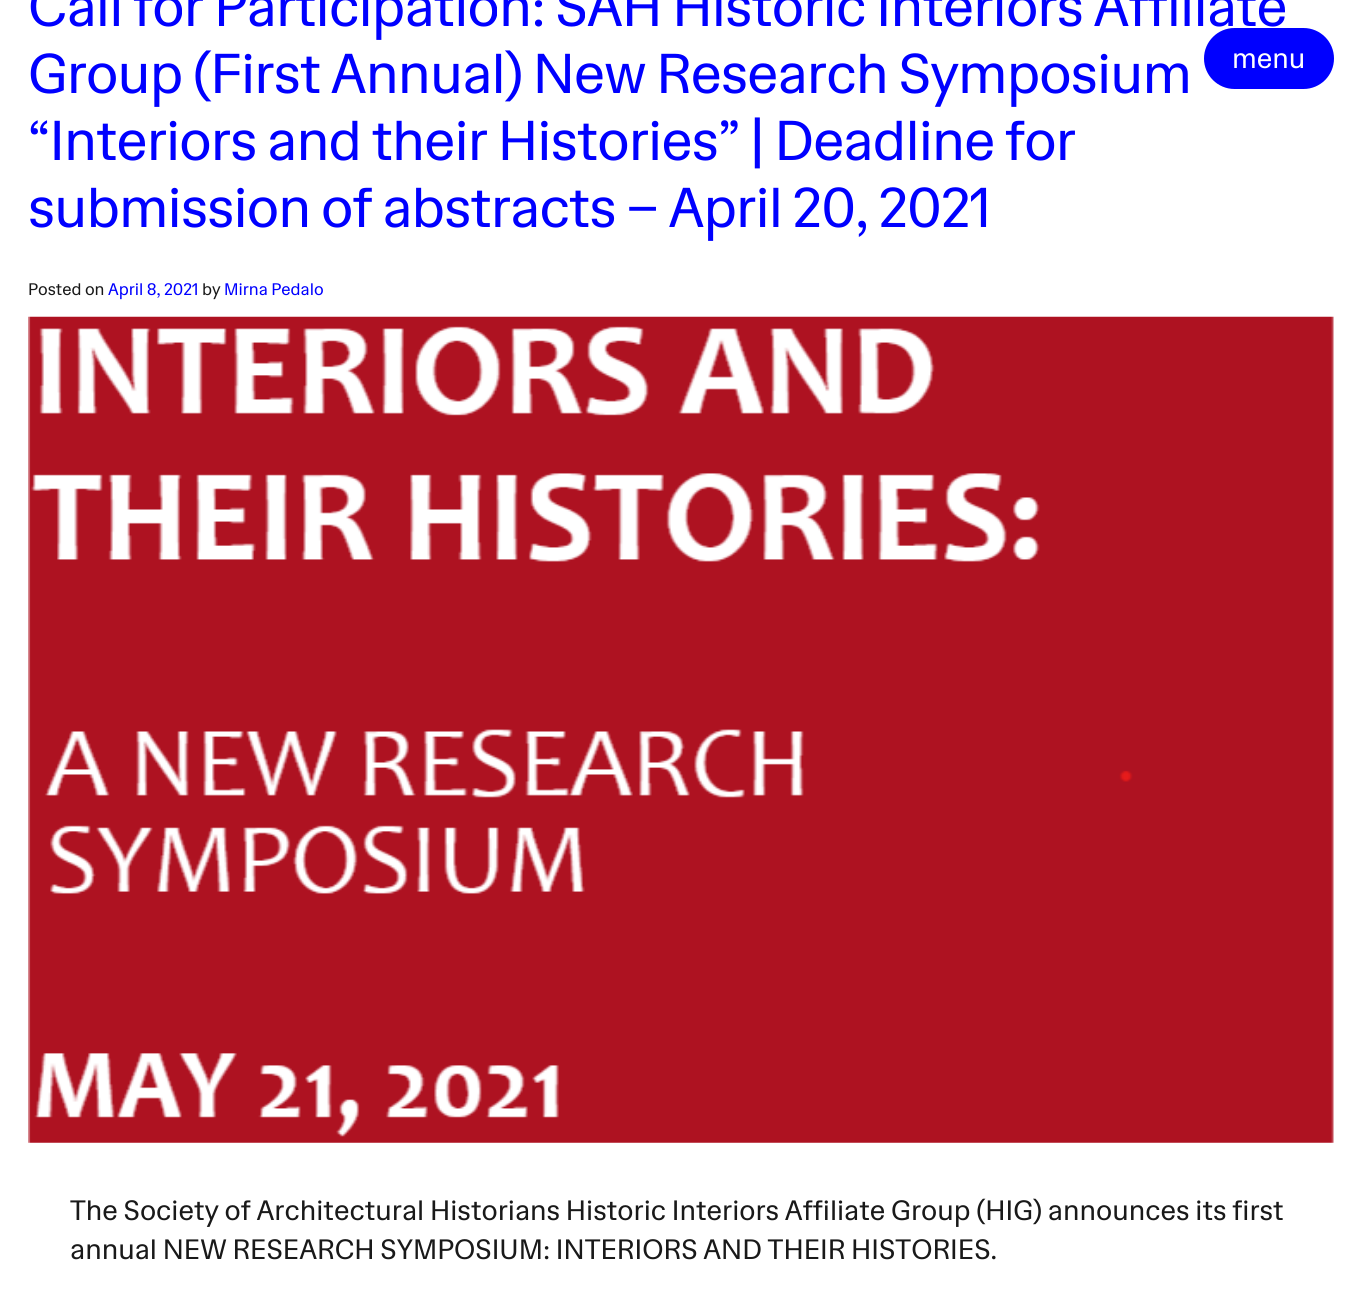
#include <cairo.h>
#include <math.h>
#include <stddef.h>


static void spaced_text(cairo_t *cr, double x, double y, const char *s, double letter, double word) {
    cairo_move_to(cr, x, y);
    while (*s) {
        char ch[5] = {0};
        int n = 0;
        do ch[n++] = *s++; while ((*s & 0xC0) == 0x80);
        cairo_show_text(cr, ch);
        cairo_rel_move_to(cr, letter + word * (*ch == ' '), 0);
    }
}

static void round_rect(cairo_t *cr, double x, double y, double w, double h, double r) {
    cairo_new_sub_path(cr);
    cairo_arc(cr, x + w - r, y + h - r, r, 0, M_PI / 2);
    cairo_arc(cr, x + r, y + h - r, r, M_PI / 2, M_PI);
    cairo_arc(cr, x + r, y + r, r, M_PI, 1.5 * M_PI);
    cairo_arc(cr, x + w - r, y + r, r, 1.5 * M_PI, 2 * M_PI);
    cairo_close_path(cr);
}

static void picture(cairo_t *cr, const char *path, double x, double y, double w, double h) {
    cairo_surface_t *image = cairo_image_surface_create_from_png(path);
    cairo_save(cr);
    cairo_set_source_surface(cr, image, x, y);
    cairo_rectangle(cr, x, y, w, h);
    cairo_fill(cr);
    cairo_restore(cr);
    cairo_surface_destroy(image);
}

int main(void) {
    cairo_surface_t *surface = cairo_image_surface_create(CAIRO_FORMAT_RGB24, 1360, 1300);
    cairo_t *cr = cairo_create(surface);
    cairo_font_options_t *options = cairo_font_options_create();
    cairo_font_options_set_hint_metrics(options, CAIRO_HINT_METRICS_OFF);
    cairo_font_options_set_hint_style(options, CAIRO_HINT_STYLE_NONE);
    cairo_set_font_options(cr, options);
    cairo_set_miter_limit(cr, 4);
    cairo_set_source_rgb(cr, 1, 1, 1);
    cairo_paint(cr);
    cairo_select_font_face(cr, "Hedvig Letters Sans", CAIRO_FONT_SLANT_NORMAL, CAIRO_FONT_WEIGHT_NORMAL);
    cairo_set_font_size(cr, 56);
    cairo_set_source_rgb(cr, 0, 0, 1);
    spaced_text(cr, 28, 26, "Call for Participation: SAH Historic Interiors Affiliate", -0.88, 0);
    spaced_text(cr, 28, 93, "Group (First Annual) New Research Symposium", -0.88, 0);
    spaced_text(cr, 28, 160, "“Interiors and their Histories” | Deadline for", -0.88, 0);
    spaced_text(cr, 28, 227, "submission of abstracts – April 20, 2021", -0.88, 0);
    cairo_set_font_size(cr, 16.75);
    cairo_set_source_rgb(cr, 0.098, 0.098, 0.098);
    cairo_move_to(cr, 28, 295);
    cairo_show_text(cr, "Posted on");
    cairo_set_source_rgb(cr, 0, 0, 1);
    cairo_move_to(cr, 108, 295);
    cairo_show_text(cr, "April 8, 2021");
    cairo_set_source_rgb(cr, 0.098, 0.098, 0.098);
    cairo_move_to(cr, 202, 295);
    cairo_show_text(cr, "by");
    cairo_set_source_rgb(cr, 0, 0, 1);
    cairo_move_to(cr, 224, 295);
    cairo_show_text(cr, "Mirna Pedalo");
    picture(cr, "img1.png", 28, 316, 1306, 827);
    cairo_set_font_size(cr, 28);
    cairo_set_source_rgb(cr, 0.098, 0.098, 0.098);
    cairo_move_to(cr, 70, 1220);
    cairo_show_text(cr, "The Society of Architectural Historians Historic Interiors Affiliate Group (HIG) announces its first");
    cairo_move_to(cr, 70, 1259);
    cairo_show_text(cr, "annual NEW RESEARCH SYMPOSIUM: INTERIORS AND THEIR HISTORIES.");
    cairo_set_source_rgb(cr, 0, 0, 1);
    round_rect(cr, 1204, 28, 130, 61, 30.5);
    cairo_fill(cr);
    cairo_set_source_rgb(cr, 1, 1, 1);
    cairo_move_to(cr, 1232, 68);
    cairo_show_text(cr, "menu");
    cairo_surface_write_to_png(surface, "page.png");
    cairo_font_options_destroy(options);
    cairo_destroy(cr);
    cairo_surface_destroy(surface);
    return 0;
}
